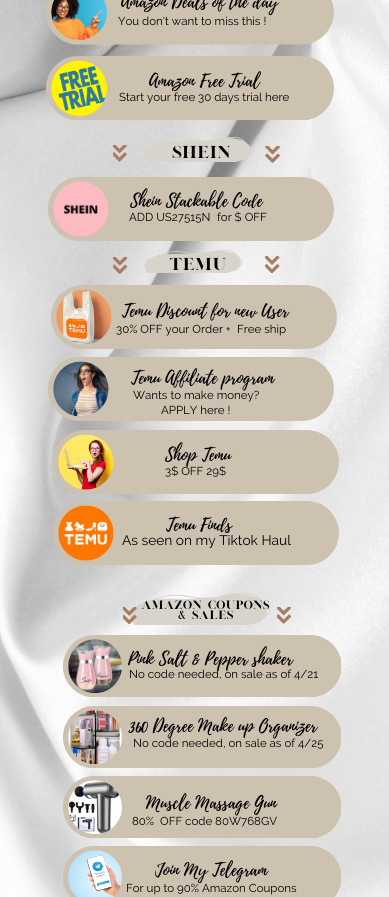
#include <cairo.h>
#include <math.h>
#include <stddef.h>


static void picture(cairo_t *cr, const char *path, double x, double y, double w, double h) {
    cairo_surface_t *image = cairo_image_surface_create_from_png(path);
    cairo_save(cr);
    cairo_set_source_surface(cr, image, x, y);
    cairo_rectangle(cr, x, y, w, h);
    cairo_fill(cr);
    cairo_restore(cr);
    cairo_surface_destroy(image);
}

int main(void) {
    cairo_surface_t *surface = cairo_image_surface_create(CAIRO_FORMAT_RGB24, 389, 897);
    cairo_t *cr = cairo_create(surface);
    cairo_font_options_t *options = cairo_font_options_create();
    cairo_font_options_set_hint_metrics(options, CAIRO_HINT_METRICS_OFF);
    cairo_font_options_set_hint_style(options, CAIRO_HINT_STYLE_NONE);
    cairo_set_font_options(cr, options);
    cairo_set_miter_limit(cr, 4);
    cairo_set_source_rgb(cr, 1, 1, 1);
    cairo_paint(cr);
    picture(cr, "img1.png", 0, 0, 389, 897);
    picture(cr, "img2.png", 46, 0, 288, 45);
    cairo_select_font_face(cr, "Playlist", CAIRO_FONT_SLANT_NORMAL, CAIRO_FONT_WEIGHT_NORMAL);
    cairo_set_font_size(cr, 17.4);
    cairo_set_source_rgb(cr, 0, 0, 0);
    cairo_move_to(cr, 121, 7);
    cairo_show_text(cr, "Amazon Deals of the day");
    cairo_select_font_face(cr, "Raleway", CAIRO_FONT_SLANT_NORMAL, CAIRO_FONT_WEIGHT_NORMAL);
    cairo_set_font_size(cr, 11.5);
    cairo_move_to(cr, 118, 25);
    cairo_show_text(cr, "You don't want to miss this !");
    picture(cr, "img3.png", 46, 56, 288, 64);
    cairo_select_font_face(cr, "Playlist", CAIRO_FONT_SLANT_NORMAL, CAIRO_FONT_WEIGHT_NORMAL);
    cairo_set_font_size(cr, 17.4);
    cairo_move_to(cr, 149, 86);
    cairo_show_text(cr, "Amazon Free Trial");
    cairo_select_font_face(cr, "Raleway", CAIRO_FONT_SLANT_NORMAL, CAIRO_FONT_WEIGHT_NORMAL);
    cairo_set_font_size(cr, 11.5);
    cairo_move_to(cr, 119, 101);
    cairo_show_text(cr, "Start your free 30 days trial here");
    picture(cr, "img4.png", 113, 145, 14, 17);
    picture(cr, "img5.png", 143, 137, 109, 25);
    cairo_select_font_face(cr, "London", CAIRO_FONT_SLANT_NORMAL, CAIRO_FONT_WEIGHT_NORMAL);
    cairo_set_font_size(cr, 14);
    cairo_move_to(cr, 172, 158);
    cairo_show_text(cr, "Shein");
    picture(cr, "img6.png", 265, 146, 15, 17);
    picture(cr, "img7.png", 48, 177, 286, 64);
    cairo_select_font_face(cr, "Playlist", CAIRO_FONT_SLANT_NORMAL, CAIRO_FONT_WEIGHT_NORMAL);
    cairo_set_font_size(cr, 17.4);
    cairo_move_to(cr, 130, 206);
    cairo_show_text(cr, "Shein Stackable Code");
    cairo_select_font_face(cr, "Raleway", CAIRO_FONT_SLANT_NORMAL, CAIRO_FONT_WEIGHT_NORMAL);
    cairo_set_font_size(cr, 11.5);
    cairo_move_to(cr, 129, 221);
    cairo_show_text(cr, "ADD US27515N");
    cairo_move_to(cr, 217, 221);
    cairo_show_text(cr, "for $ OFF");
    picture(cr, "img8.png", 113, 257, 15, 17);
    picture(cr, "img9.png", 144, 250, 99, 23);
    picture(cr, "img10.png", 265, 256, 15, 17);
    cairo_select_font_face(cr, "London", CAIRO_FONT_SLANT_NORMAL, CAIRO_FONT_WEIGHT_NORMAL);
    cairo_set_font_size(cr, 14);
    cairo_move_to(cr, 169, 270);
    cairo_show_text(cr, "Temu");
    picture(cr, "img11.png", 51, 285, 286, 64);
    cairo_select_font_face(cr, "Playlist", CAIRO_FONT_SLANT_NORMAL, CAIRO_FONT_WEIGHT_NORMAL);
    cairo_set_font_size(cr, 17.4);
    cairo_move_to(cr, 122, 316);
    cairo_show_text(cr, "Temu Discount for new User");
    cairo_select_font_face(cr, "Raleway", CAIRO_FONT_SLANT_NORMAL, CAIRO_FONT_WEIGHT_NORMAL);
    cairo_set_font_size(cr, 11.5);
    cairo_move_to(cr, 116, 333);
    cairo_show_text(cr, "30% OFF your Order +");
    cairo_move_to(cr, 237, 333);
    cairo_show_text(cr, "Free ship");
    picture(cr, "img12.png", 48, 357, 286, 64);
    cairo_select_font_face(cr, "Playlist", CAIRO_FONT_SLANT_NORMAL, CAIRO_FONT_WEIGHT_NORMAL);
    cairo_set_font_size(cr, 17.4);
    cairo_move_to(cr, 131, 383);
    cairo_show_text(cr, "Temu Affiliate program");
    cairo_select_font_face(cr, "Raleway", CAIRO_FONT_SLANT_NORMAL, CAIRO_FONT_WEIGHT_NORMAL);
    cairo_set_font_size(cr, 11.5);
    cairo_move_to(cr, 133, 399);
    cairo_show_text(cr, "Wants to make money?");
    cairo_move_to(cr, 161, 414);
    cairo_show_text(cr, "APPLY here !");
    picture(cr, "img13.png", 53, 430, 286, 64);
    cairo_select_font_face(cr, "Playlist", CAIRO_FONT_SLANT_NORMAL, CAIRO_FONT_WEIGHT_NORMAL);
    cairo_set_font_size(cr, 17.4);
    cairo_move_to(cr, 165, 460);
    cairo_show_text(cr, "Shop Temu");
    cairo_select_font_face(cr, "Raleway", CAIRO_FONT_SLANT_NORMAL, CAIRO_FONT_WEIGHT_NORMAL);
    cairo_set_font_size(cr, 11.5);
    cairo_move_to(cr, 165, 475);
    cairo_show_text(cr, "3$ OFF 29$");
    picture(cr, "img14.png", 53, 501, 286, 64);
    cairo_select_font_face(cr, "Playlist", CAIRO_FONT_SLANT_NORMAL, CAIRO_FONT_WEIGHT_NORMAL);
    cairo_set_font_size(cr, 17.4);
    cairo_move_to(cr, 166, 530);
    cairo_show_text(cr, "Temu Finds");
    cairo_select_font_face(cr, "Raleway", CAIRO_FONT_SLANT_NORMAL, CAIRO_FONT_WEIGHT_NORMAL);
    cairo_set_font_size(cr, 13.75);
    cairo_move_to(cr, 122, 545);
    cairo_show_text(cr, "As seen on my Tiktok Haul");
    picture(cr, "img15.png", 130, 593, 140, 32);
    picture(cr, "img16.png", 123, 607, 14, 17);
    cairo_select_font_face(cr, "London", CAIRO_FONT_SLANT_NORMAL, CAIRO_FONT_WEIGHT_NORMAL);
    cairo_set_font_size(cr, 9.75);
    cairo_move_to(cr, 141, 609);
    cairo_show_text(cr, "amazon coupons");
    cairo_move_to(cr, 178, 619);
    cairo_show_text(cr, "& Sales");
    picture(cr, "img17.png", 277, 607, 14, 17);
    picture(cr, "img18.png", 63, 635, 278, 62);
    cairo_select_font_face(cr, "Playlist", CAIRO_FONT_SLANT_NORMAL, CAIRO_FONT_WEIGHT_NORMAL);
    cairo_set_font_size(cr, 17.4);
    cairo_move_to(cr, 128, 664);
    cairo_show_text(cr, "Pink Salt & Pepper shaker");
    cairo_select_font_face(cr, "Raleway", CAIRO_FONT_SLANT_NORMAL, CAIRO_FONT_WEIGHT_NORMAL);
    cairo_set_font_size(cr, 11.5);
    cairo_move_to(cr, 129, 678);
    cairo_show_text(cr, "No code needed, on sale as of 4/21");
    picture(cr, "img19.png", 63, 706, 278, 62);
    cairo_select_font_face(cr, "Playlist", CAIRO_FONT_SLANT_NORMAL, CAIRO_FONT_WEIGHT_NORMAL);
    cairo_set_font_size(cr, 17.4);
    cairo_move_to(cr, 129, 731);
    cairo_show_text(cr, "360 Degree Make up Organizer");
    cairo_select_font_face(cr, "Raleway", CAIRO_FONT_SLANT_NORMAL, CAIRO_FONT_WEIGHT_NORMAL);
    cairo_set_font_size(cr, 11.5);
    cairo_move_to(cr, 133, 747);
    cairo_show_text(cr, "No code needed, on sale as of 4/25");
    picture(cr, "img20.png", 63, 776, 278, 62);
    cairo_select_font_face(cr, "Playlist", CAIRO_FONT_SLANT_NORMAL, CAIRO_FONT_WEIGHT_NORMAL);
    cairo_set_font_size(cr, 17.4);
    cairo_move_to(cr, 146, 808);
    cairo_show_text(cr, "Muscle Massage Gun");
    cairo_select_font_face(cr, "Raleway", CAIRO_FONT_SLANT_NORMAL, CAIRO_FONT_WEIGHT_NORMAL);
    cairo_set_font_size(cr, 11.5);
    cairo_move_to(cr, 132, 825);
    cairo_show_text(cr, "80%");
    cairo_move_to(cr, 160, 825);
    cairo_show_text(cr, "OFF code 80W768GV");
    picture(cr, "img21.png", 63, 846, 278, 51);
    cairo_select_font_face(cr, "Playlist", CAIRO_FONT_SLANT_NORMAL, CAIRO_FONT_WEIGHT_NORMAL);
    cairo_set_font_size(cr, 17.4);
    cairo_move_to(cr, 155, 875);
    cairo_show_text(cr, "Join My Telegram");
    cairo_select_font_face(cr, "Raleway", CAIRO_FONT_SLANT_NORMAL, CAIRO_FONT_WEIGHT_NORMAL);
    cairo_set_font_size(cr, 11.5);
    cairo_move_to(cr, 126, 892);
    cairo_show_text(cr, "For up to 90% Amazon Coupons");
    cairo_surface_write_to_png(surface, "page.png");
    cairo_font_options_destroy(options);
    cairo_destroy(cr);
    cairo_surface_destroy(surface);
    return 0;
}
